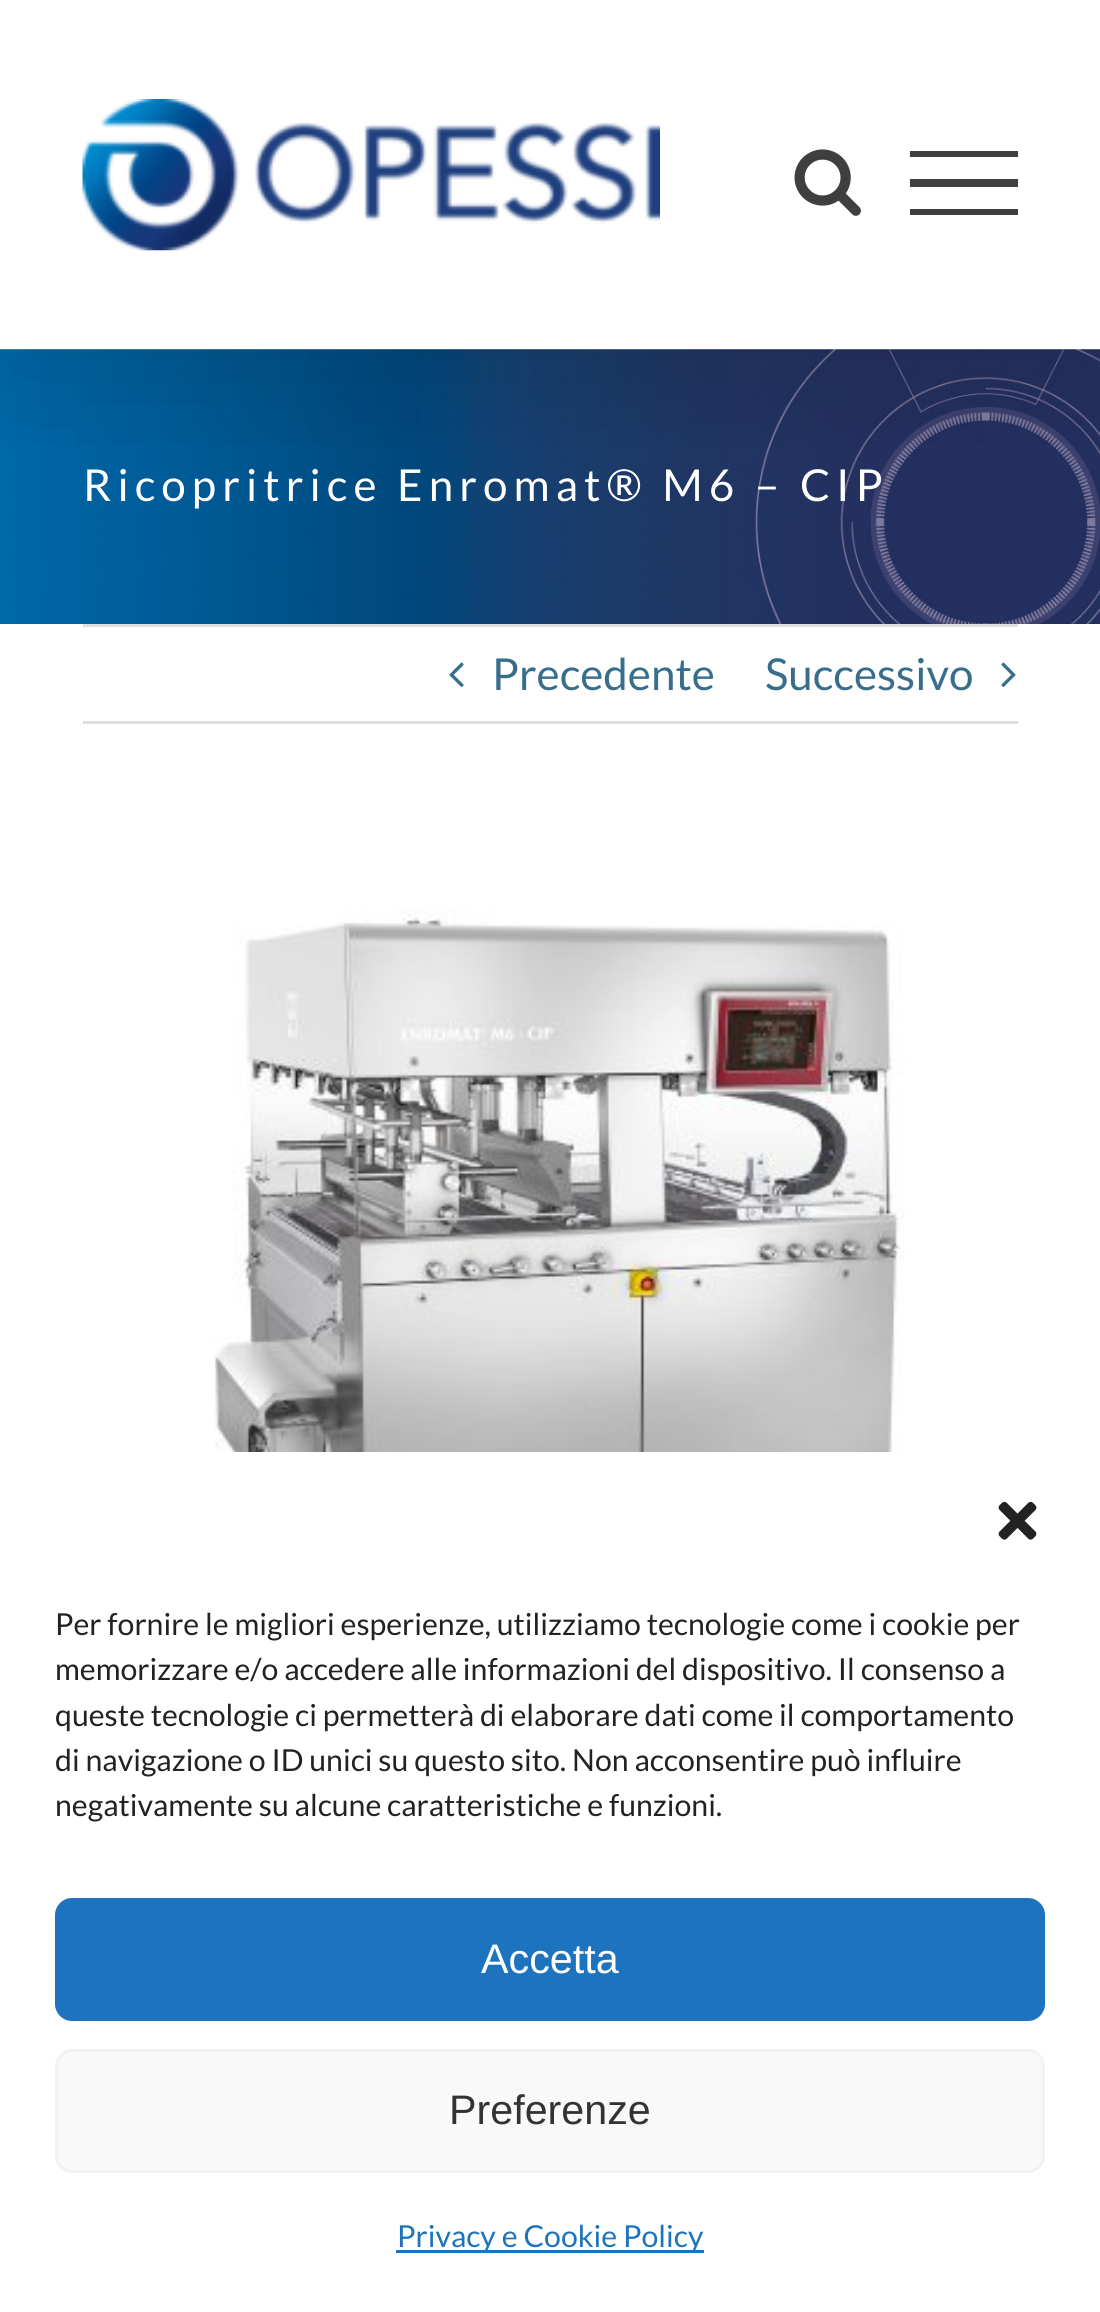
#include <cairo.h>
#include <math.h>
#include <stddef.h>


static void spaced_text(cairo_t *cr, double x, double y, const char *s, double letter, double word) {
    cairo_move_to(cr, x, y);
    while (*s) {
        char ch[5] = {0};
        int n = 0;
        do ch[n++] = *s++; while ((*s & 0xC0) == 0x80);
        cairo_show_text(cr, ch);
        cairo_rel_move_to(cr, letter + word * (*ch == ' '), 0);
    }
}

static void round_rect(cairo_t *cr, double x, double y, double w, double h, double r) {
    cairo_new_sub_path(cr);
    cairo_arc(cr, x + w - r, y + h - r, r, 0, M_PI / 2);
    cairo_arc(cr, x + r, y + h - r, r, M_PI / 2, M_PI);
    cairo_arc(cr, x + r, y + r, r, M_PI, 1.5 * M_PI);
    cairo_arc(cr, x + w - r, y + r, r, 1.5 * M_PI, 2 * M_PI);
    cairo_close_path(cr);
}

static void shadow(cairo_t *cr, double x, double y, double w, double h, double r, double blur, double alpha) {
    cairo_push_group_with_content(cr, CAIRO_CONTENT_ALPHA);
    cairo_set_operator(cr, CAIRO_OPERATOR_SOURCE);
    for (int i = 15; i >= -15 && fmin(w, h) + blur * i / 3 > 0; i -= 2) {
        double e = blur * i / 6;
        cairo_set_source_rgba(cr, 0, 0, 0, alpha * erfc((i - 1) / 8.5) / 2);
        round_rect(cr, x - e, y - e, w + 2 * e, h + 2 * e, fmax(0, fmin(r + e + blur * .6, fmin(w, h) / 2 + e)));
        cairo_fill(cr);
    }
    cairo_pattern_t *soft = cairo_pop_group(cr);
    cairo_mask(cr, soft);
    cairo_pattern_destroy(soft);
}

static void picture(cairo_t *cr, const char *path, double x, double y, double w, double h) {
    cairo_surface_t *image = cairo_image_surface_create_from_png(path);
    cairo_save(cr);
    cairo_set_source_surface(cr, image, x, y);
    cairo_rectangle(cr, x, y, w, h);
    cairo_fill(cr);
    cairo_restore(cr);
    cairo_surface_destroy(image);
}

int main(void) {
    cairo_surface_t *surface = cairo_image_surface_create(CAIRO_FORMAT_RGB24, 1100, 2312);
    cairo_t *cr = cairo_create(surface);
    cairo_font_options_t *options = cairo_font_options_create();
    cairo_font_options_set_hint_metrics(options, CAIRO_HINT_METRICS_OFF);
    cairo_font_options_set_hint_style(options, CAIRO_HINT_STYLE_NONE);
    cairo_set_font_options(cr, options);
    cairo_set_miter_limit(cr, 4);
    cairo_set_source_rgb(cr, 1, 1, 1);
    cairo_paint(cr);
    picture(cr, "img3.png", 0, 349, 1100, 275);
    cairo_save(cr);
    cairo_rectangle(cr, 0, 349, 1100, 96);
    cairo_clip(cr);
    cairo_set_source_rgb(cr, 0, 0, 0);
    shadow(cr, 6, 33, 1089, 338, 0, 69, 0.14);
    cairo_restore(cr);
    picture(cr, "img1.png", 82, 99, 578, 152);
    picture(cr, "img2.png", 794, 149, 67, 67);
    cairo_set_source_rgb(cr, 0.247, 0.247, 0.247);
    cairo_rectangle(cr, 910, 151, 108, 6);
    cairo_fill(cr);
    cairo_rectangle(cr, 910, 179, 108, 8);
    cairo_fill(cr);
    cairo_rectangle(cr, 910, 209, 108, 6);
    cairo_fill(cr);
    cairo_select_font_face(cr, "Lato", CAIRO_FONT_SLANT_NORMAL, CAIRO_FONT_WEIGHT_NORMAL);
    cairo_set_font_size(cr, 44);
    cairo_set_source_rgb(cr, 1, 1, 1);
    spaced_text(cr, 83, 501, "Ricopritrice Enromat® M6 – CIP", 6.05, 0);
    cairo_set_source_rgb(cr, 0.878, 0.871, 0.871);
    cairo_rectangle(cr, 83, 624, 935, 3);
    cairo_fill(cr);
    cairo_rectangle(cr, 83, 721, 935, 3);
    cairo_fill(cr);
    picture(cr, "img4.png", 449, 662, 15, 25);
    cairo_set_source_rgb(cr, 0.22, 0.431, 0.549);
    cairo_move_to(cr, 492, 690);
    cairo_show_text(cr, "Precedente");
    cairo_move_to(cr, 765, 690);
    cairo_show_text(cr, "Successivo");
    picture(cr, "img5.png", 1001, 662, 15, 25);
    picture(cr, "img6.png", 214, 907, 691, 545);
    picture(cr, "img7.png", 998, 1501, 39, 39);
    cairo_set_font_size(cr, 30.25);
    cairo_set_source_rgb(cr, 0.133, 0.133, 0.133);
    cairo_move_to(cr, 55, 1635);
    cairo_show_text(cr, "Per fornire le migliori esperienze, utilizziamo tecnologie come i cookie per");
    cairo_move_to(cr, 55, 1680);
    cairo_show_text(cr, "memorizzare e/o accedere alle informazioni del dispositivo. Il consenso a");
    cairo_move_to(cr, 55, 1726);
    cairo_show_text(cr, "queste tecnologie ci permetterà di elaborare dati come il comportamento");
    cairo_move_to(cr, 55, 1771);
    cairo_show_text(cr, "di navigazione o ID unici su questo sito. Non acconsentire può influire");
    cairo_move_to(cr, 55, 1816);
    cairo_show_text(cr, "negativamente su alcune caratteristiche e funzioni.");
    cairo_set_source_rgb(cr, 0.118, 0.451, 0.745);
    round_rect(cr, 56.5, 1899.5, 987, 120, 15.5);
    cairo_fill_preserve(cr);
    cairo_set_line_width(cr, 3);
    cairo_stroke(cr);
    cairo_select_font_face(cr, "Liberation Sans", CAIRO_FONT_SLANT_NORMAL, CAIRO_FONT_WEIGHT_NORMAL);
    cairo_set_font_size(cr, 41.25);
    cairo_set_source_rgb(cr, 1, 1, 1);
    cairo_move_to(cr, 481, 1973);
    cairo_show_text(cr, "Accetta");
    cairo_set_source_rgb(cr, 0.976, 0.976, 0.976);
    round_rect(cr, 56.5, 2050.5, 987, 121, 15.5);
    cairo_fill_preserve(cr);
    cairo_set_source_rgb(cr, 0.949, 0.949, 0.949);
    cairo_stroke(cr);
    cairo_set_source_rgb(cr, 0.2, 0.2, 0.2);
    cairo_move_to(cr, 449, 2124);
    cairo_show_text(cr, "Preferenze");
    cairo_set_source_rgb(cr, 0.118, 0.451, 0.745);
    cairo_rectangle(cr, 396, 2250, 308, 3);
    cairo_fill(cr);
    cairo_select_font_face(cr, "Lato", CAIRO_FONT_SLANT_NORMAL, CAIRO_FONT_WEIGHT_NORMAL);
    cairo_set_font_size(cr, 30.25);
    cairo_move_to(cr, 397, 2247);
    cairo_show_text(cr, "Privacy e Cookie Policy");
    cairo_surface_write_to_png(surface, "page.png");
    cairo_font_options_destroy(options);
    cairo_destroy(cr);
    cairo_surface_destroy(surface);
    return 0;
}
